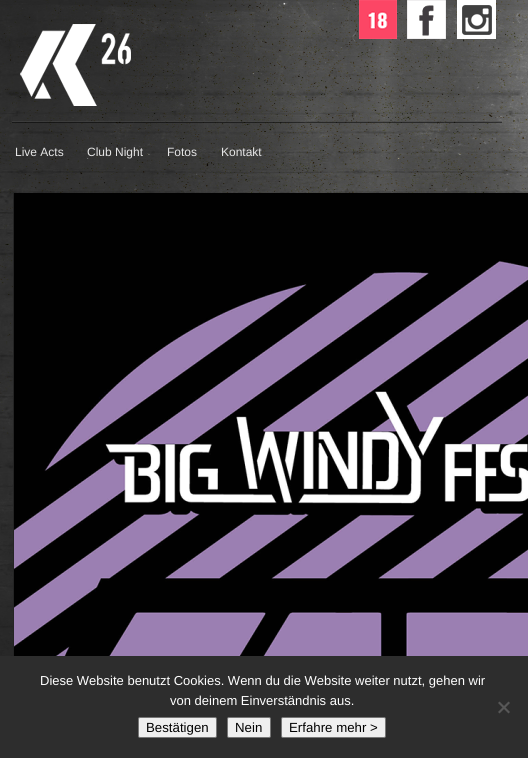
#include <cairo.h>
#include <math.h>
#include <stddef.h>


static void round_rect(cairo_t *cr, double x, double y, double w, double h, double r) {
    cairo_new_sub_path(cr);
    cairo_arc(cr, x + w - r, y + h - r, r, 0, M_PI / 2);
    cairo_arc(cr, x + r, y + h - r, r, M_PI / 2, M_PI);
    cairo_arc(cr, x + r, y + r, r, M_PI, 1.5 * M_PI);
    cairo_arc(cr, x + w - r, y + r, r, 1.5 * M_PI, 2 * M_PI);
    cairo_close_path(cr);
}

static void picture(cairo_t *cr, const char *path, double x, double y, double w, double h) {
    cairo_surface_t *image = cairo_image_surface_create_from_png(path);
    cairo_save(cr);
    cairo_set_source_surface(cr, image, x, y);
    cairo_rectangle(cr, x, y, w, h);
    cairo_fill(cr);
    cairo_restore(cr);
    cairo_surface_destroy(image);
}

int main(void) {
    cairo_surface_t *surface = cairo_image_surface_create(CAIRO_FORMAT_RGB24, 528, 758);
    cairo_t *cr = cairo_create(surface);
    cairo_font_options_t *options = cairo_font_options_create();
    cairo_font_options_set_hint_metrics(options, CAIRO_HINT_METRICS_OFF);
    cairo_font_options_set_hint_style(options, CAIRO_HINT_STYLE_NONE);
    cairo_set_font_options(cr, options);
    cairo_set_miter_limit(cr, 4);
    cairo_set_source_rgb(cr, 1, 1, 1);
    cairo_paint(cr);
    picture(cr, "img1.png", 0, 0, 528, 656);
    picture(cr, "img2.png", 359, 0, 38, 39);
    picture(cr, "img3.png", 407, 0, 39, 39);
    picture(cr, "img4.png", 457, 0, 39, 39);
    picture(cr, "img5.png", 20, 24, 111, 82);
    picture(cr, "img6.png", 12, 121, 490, 2);
    cairo_select_font_face(cr, "Liberation Sans", CAIRO_FONT_SLANT_NORMAL, CAIRO_FONT_WEIGHT_NORMAL);
    cairo_set_font_size(cr, 12);
    cairo_set_source_rgb(cr, 0.898, 0.898, 0.898);
    cairo_move_to(cr, 15, 156);
    cairo_show_text(cr, "Live Acts");
    cairo_move_to(cr, 87, 156);
    cairo_show_text(cr, "Club Night");
    cairo_move_to(cr, 167, 156);
    cairo_show_text(cr, "Fotos");
    cairo_move_to(cr, 221, 156);
    cairo_show_text(cr, "Kontakt");
    cairo_set_source_rgb(cr, 0.141, 0.141, 0.141);
    cairo_rectangle(cr, 13, 193, 1, 463);
    cairo_fill(cr);
    picture(cr, "img7.png", 14, 193, 514, 463);
    cairo_set_source_rgb(cr, 0.176, 0.176, 0.176);
    cairo_rectangle(cr, 0, 656, 528, 102);
    cairo_fill(cr);
    cairo_set_font_size(cr, 13);
    cairo_set_source_rgb(cr, 1, 1, 1);
    cairo_move_to(cr, 40, 685);
    cairo_show_text(cr, "Diese Website benutzt Cookies. Wenn du die Website weiter nutzt, gehen wir");
    cairo_move_to(cr, 170, 705);
    cairo_show_text(cr, "von deinem Einverständnis aus.");
    cairo_set_source_rgb(cr, 0.341, 0.341, 0.341);
    cairo_new_path(cr);
    cairo_move_to(cr, 508.5, 701.5);
    cairo_line_to(cr, 510, 703);
    cairo_line_to(cr, 499.5, 713.5);
    cairo_line_to(cr, 498, 712);
    cairo_close_path(cr);
    cairo_fill(cr);
    cairo_new_path(cr);
    cairo_move_to(cr, 498, 703);
    cairo_line_to(cr, 499.5, 701.5);
    cairo_line_to(cr, 510, 712);
    cairo_line_to(cr, 508.5, 713.5);
    cairo_close_path(cr);
    cairo_fill(cr);
    cairo_set_source_rgb(cr, 0.937, 0.937, 0.937);
    round_rect(cr, 138.5, 717.5, 78, 20, 1.5);
    cairo_fill_preserve(cr);
    cairo_set_source_rgb(cr, 0.463, 0.463, 0.463);
    cairo_set_line_width(cr, 1);
    cairo_stroke(cr);
    cairo_set_font_size(cr, 13.25);
    cairo_set_source_rgb(cr, 0, 0, 0);
    cairo_move_to(cr, 146, 732);
    cairo_show_text(cr, "Bestätigen");
    cairo_set_source_rgb(cr, 0.937, 0.937, 0.937);
    round_rect(cr, 227.5, 717.5, 43, 20, 1.5);
    cairo_fill_preserve(cr);
    cairo_set_source_rgb(cr, 0.463, 0.463, 0.463);
    cairo_stroke(cr);
    cairo_set_source_rgb(cr, 0, 0, 0);
    cairo_move_to(cr, 235, 732);
    cairo_show_text(cr, "Nein");
    cairo_set_source_rgb(cr, 0.937, 0.937, 0.937);
    round_rect(cr, 281.5, 717.5, 104, 20, 1.5);
    cairo_fill_preserve(cr);
    cairo_set_source_rgb(cr, 0.463, 0.463, 0.463);
    cairo_stroke(cr);
    cairo_set_source_rgb(cr, 0, 0, 0);
    cairo_move_to(cr, 289, 732);
    cairo_show_text(cr, "Erfahre mehr >");
    cairo_surface_write_to_png(surface, "page.png");
    cairo_font_options_destroy(options);
    cairo_destroy(cr);
    cairo_surface_destroy(surface);
    return 0;
}
